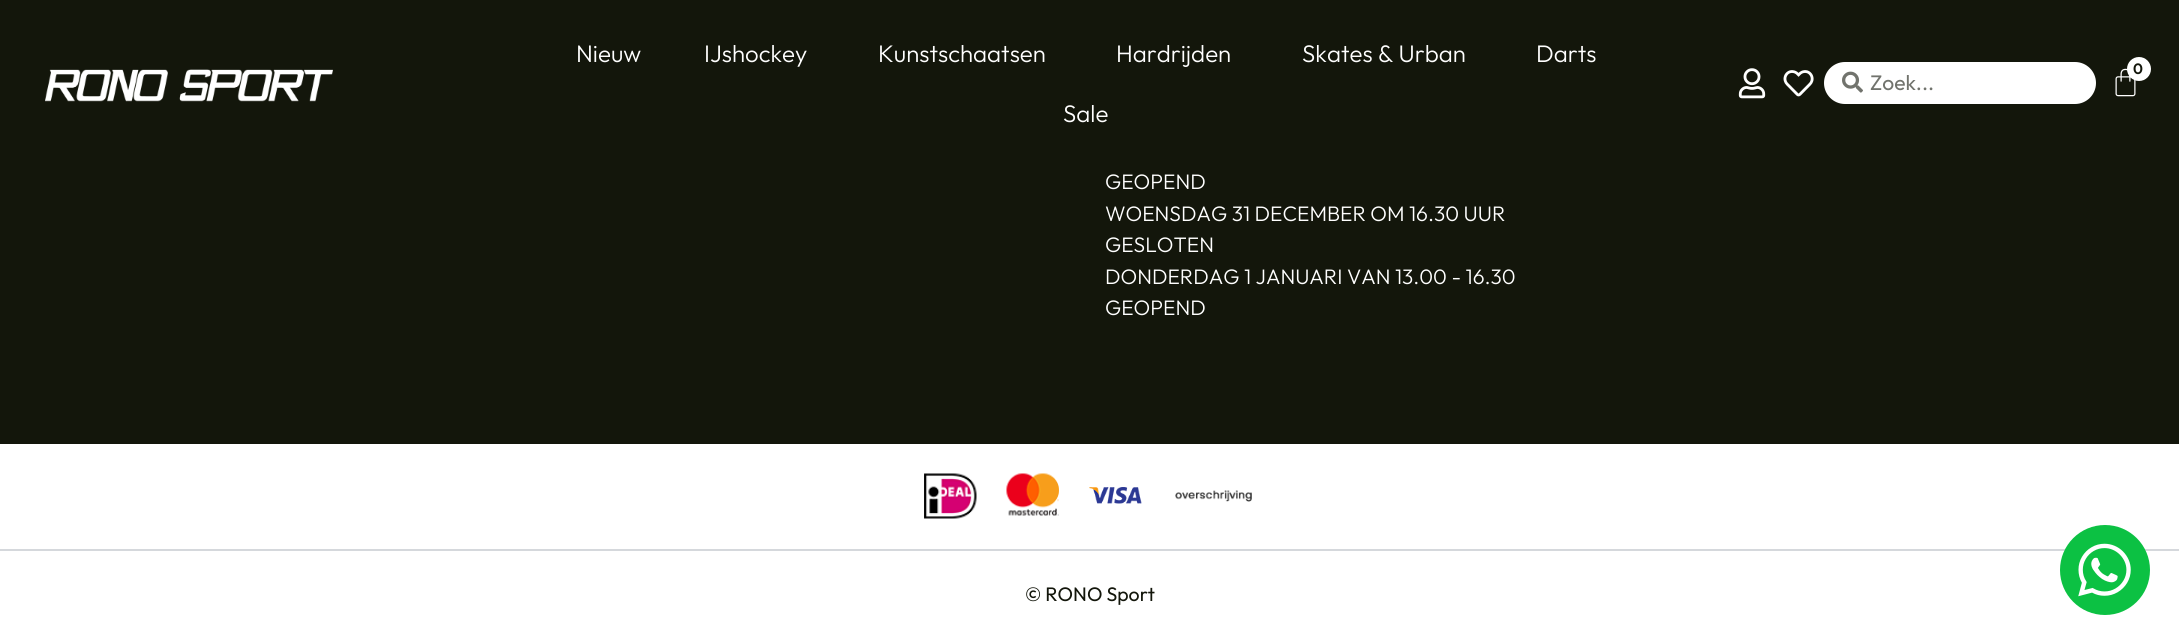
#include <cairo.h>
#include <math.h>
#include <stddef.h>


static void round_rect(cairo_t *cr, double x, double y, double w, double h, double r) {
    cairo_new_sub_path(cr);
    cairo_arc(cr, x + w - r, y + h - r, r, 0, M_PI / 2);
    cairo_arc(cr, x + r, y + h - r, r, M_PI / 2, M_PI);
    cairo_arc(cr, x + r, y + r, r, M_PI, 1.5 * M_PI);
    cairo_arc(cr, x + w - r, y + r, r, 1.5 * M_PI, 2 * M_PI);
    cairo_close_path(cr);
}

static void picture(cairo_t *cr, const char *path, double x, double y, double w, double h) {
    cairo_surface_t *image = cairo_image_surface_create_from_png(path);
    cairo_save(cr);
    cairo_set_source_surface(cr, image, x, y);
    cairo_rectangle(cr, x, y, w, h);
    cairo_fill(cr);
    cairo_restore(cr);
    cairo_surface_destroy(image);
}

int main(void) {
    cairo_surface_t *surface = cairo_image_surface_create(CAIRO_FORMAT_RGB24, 2179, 638);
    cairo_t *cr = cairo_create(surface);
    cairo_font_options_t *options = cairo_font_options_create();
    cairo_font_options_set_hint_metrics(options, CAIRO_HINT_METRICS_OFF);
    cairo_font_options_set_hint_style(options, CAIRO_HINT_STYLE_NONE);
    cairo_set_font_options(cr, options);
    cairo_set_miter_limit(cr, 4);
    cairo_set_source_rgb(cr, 1, 1, 1);
    cairo_paint(cr);
    cairo_set_source_rgb(cr, 0.075, 0.086, 0.043);
    cairo_rectangle(cr, 0, 0, 2179, 444);
    cairo_fill(cr);
    picture(cr, "img1.png", 45, 69, 288, 33);
    cairo_select_font_face(cr, "Outfit Light", CAIRO_FONT_SLANT_NORMAL, CAIRO_FONT_WEIGHT_NORMAL);
    cairo_set_font_size(cr, 24);
    cairo_set_source_rgb(cr, 1, 1, 1);
    cairo_move_to(cr, 576, 62);
    cairo_show_text(cr, "Nieuw");
    cairo_move_to(cr, 704, 62);
    cairo_show_text(cr, "IJshockey");
    cairo_move_to(cr, 878, 62);
    cairo_show_text(cr, "Kunstschaatsen");
    cairo_move_to(cr, 1116, 62);
    cairo_show_text(cr, "Hardrijden");
    cairo_move_to(cr, 1302, 62);
    cairo_show_text(cr, "Skates & Urban");
    cairo_move_to(cr, 1536, 62);
    cairo_show_text(cr, "Darts");
    cairo_move_to(cr, 1063, 122);
    cairo_show_text(cr, "Sale");
    picture(cr, "img2.png", 1738, 68, 28, 31);
    picture(cr, "img3.png", 1783, 70, 31, 27);
    round_rect(cr, 1824, 62, 272, 42, 21);
    cairo_fill(cr);
    picture(cr, "img4.png", 1842, 71, 21, 22);
    cairo_select_font_face(cr, "Outfit", CAIRO_FONT_SLANT_NORMAL, CAIRO_FONT_WEIGHT_NORMAL);
    cairo_set_font_size(cr, 21);
    cairo_set_source_rgb(cr, 0.443, 0.451, 0.427);
    cairo_move_to(cr, 1870, 90);
    cairo_show_text(cr, "Zoek...");
    picture(cr, "img5.png", 2115, 68, 21, 29);
    cairo_set_source_rgb(cr, 1, 1, 1);
    cairo_arc(cr, 2139, 69, 12, 0, 2 * M_PI);
    cairo_fill(cr);
    cairo_select_font_face(cr, "Outfit SemiBold", CAIRO_FONT_SLANT_NORMAL, CAIRO_FONT_WEIGHT_NORMAL);
    cairo_set_font_size(cr, 15);
    cairo_set_source_rgb(cr, 0.075, 0.086, 0.043);
    cairo_move_to(cr, 2133, 74);
    cairo_show_text(cr, "0");
    cairo_select_font_face(cr, "Outfit Light", CAIRO_FONT_SLANT_NORMAL, CAIRO_FONT_WEIGHT_NORMAL);
    cairo_set_font_size(cr, 21);
    cairo_set_source_rgb(cr, 1, 1, 1);
    cairo_move_to(cr, 1105, 189);
    cairo_show_text(cr, "GEOPEND");
    cairo_move_to(cr, 1105, 221);
    cairo_show_text(cr, "WOENSDAG 31 DECEMBER OM 16.30 UUR");
    cairo_move_to(cr, 1105, 252);
    cairo_show_text(cr, "GESLOTEN");
    cairo_move_to(cr, 1105, 284);
    cairo_show_text(cr, "DONDERDAG 1 JANUARI VAN 13.00 - 16.30");
    cairo_move_to(cr, 1105, 315);
    cairo_show_text(cr, "GEOPEND");
    cairo_set_source_rgb(cr, 0.835, 0.847, 0.863);
    cairo_rectangle(cr, 0, 549, 2179, 2);
    cairo_fill(cr);
    picture(cr, "img6.png", 924, 473, 53, 46);
    picture(cr, "img7.png", 1006, 473, 53, 43);
    picture(cr, "img8.png", 1089, 487, 53, 17);
    picture(cr, "img9.png", 1175, 490, 77, 12);
    cairo_select_font_face(cr, "Outfit", CAIRO_FONT_SLANT_NORMAL, CAIRO_FONT_WEIGHT_NORMAL);
    cairo_set_font_size(cr, 19.5);
    cairo_set_source_rgb(cr, 0.075, 0.086, 0.043);
    cairo_move_to(cr, 1025, 601);
    cairo_show_text(cr, "© RONO Sport");
    cairo_set_source_rgb(cr, 0.047, 0.757, 0.263);
    cairo_new_path(cr);
    cairo_arc(cr, 2105, 570, 45, 0, 2 * M_PI);
    cairo_fill(cr);
    picture(cr, "img10.png", 2078, 543, 53, 54);
    cairo_surface_write_to_png(surface, "page.png");
    cairo_font_options_destroy(options);
    cairo_destroy(cr);
    cairo_surface_destroy(surface);
    return 0;
}
